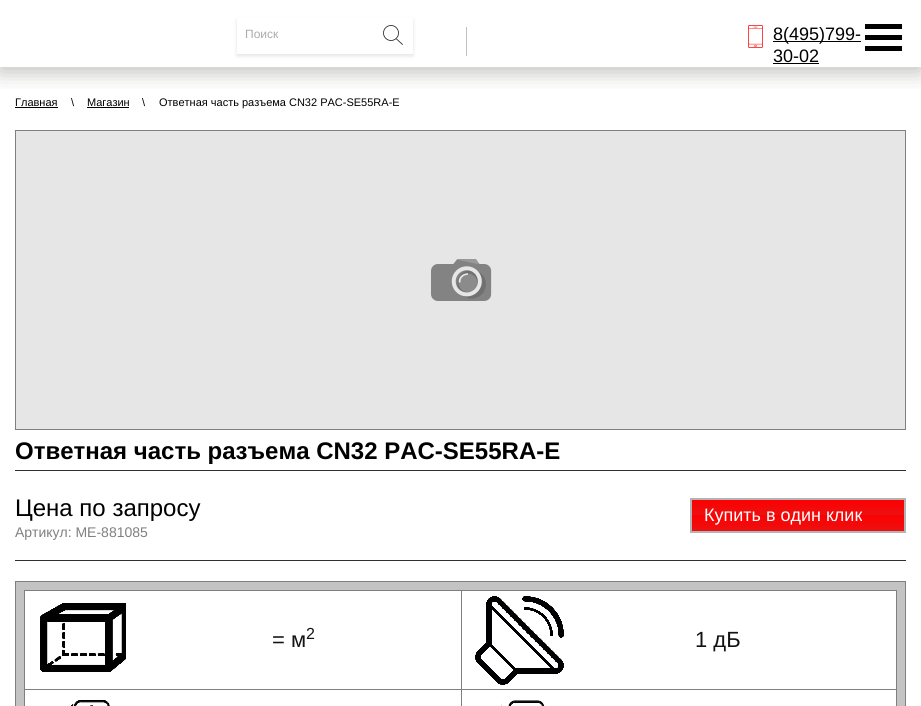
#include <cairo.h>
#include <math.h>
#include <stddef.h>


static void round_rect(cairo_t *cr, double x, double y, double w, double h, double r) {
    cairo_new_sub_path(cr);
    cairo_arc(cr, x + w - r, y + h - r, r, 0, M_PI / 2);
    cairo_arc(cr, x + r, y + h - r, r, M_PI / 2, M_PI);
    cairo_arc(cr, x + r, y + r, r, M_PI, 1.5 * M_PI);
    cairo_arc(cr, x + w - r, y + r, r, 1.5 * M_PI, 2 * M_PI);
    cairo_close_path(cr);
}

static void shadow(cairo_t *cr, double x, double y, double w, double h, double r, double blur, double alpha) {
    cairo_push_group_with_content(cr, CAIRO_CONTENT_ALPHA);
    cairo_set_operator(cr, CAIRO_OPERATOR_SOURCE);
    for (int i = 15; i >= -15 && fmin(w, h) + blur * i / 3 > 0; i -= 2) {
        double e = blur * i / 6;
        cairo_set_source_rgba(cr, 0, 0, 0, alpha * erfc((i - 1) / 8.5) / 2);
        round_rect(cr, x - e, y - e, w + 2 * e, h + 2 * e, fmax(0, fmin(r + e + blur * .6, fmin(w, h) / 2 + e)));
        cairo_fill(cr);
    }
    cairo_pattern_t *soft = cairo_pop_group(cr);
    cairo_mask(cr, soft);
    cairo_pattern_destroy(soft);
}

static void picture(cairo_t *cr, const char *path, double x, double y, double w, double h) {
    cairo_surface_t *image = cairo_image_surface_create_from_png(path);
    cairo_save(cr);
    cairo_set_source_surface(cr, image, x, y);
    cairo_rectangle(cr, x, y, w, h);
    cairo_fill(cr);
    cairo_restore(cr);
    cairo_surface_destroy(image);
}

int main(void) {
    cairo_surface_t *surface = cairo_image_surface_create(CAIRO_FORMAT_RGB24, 921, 706);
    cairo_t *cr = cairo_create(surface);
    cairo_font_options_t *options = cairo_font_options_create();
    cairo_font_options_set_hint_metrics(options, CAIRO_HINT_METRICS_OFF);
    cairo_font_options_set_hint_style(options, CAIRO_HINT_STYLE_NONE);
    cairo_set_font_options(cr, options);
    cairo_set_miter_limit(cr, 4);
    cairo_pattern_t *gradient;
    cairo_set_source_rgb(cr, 1, 1, 1);
    cairo_paint(cr);
    cairo_save(cr);
    cairo_rectangle(cr, 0, 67, 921, 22);
    cairo_clip(cr);
    cairo_set_source_rgb(cr, 0.286, 0.278, 0.231);
    shadow(cr, 0, 5, 921, 67, 0, 10.5, 0.35);
    cairo_restore(cr);
    cairo_save(cr);
    cairo_set_fill_rule(cr, CAIRO_FILL_RULE_EVEN_ODD);
    cairo_new_path(cr);
    cairo_move_to(cr, 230, 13);
    cairo_line_to(cr, 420, 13);
    cairo_line_to(cr, 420, 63);
    cairo_line_to(cr, 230, 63);
    cairo_close_path(cr);
    cairo_move_to(cr, 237, 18);
    cairo_line_to(cr, 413, 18);
    cairo_line_to(cr, 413, 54);
    cairo_line_to(cr, 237, 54);
    cairo_close_path(cr);
    cairo_clip(cr);
    cairo_set_source_rgb(cr, 0, 0, 0);
    shadow(cr, 237, 20, 176, 36, 0, 2, 0.11);
    cairo_restore(cr);
    cairo_select_font_face(cr, "Liberation Sans", CAIRO_FONT_SLANT_NORMAL, CAIRO_FONT_WEIGHT_NORMAL);
    cairo_set_font_size(cr, 12);
    cairo_set_source_rgb(cr, 0.671, 0.671, 0.671);
    cairo_move_to(cr, 245, 38);
    cairo_show_text(cr, "Поиск");
    cairo_new_path(cr);
    cairo_arc(cr, 391, 33, 7.5, 0, 2 * M_PI);
    cairo_set_source_rgb(cr, 0.137, 0.122, 0.125);
    cairo_set_line_width(cr, 0.8);
    cairo_stroke(cr);
    cairo_new_path(cr);
    cairo_move_to(cr, 402.5, 44.5);
    cairo_line_to(cr, 396.5, 39);
    cairo_set_line_cap(cr, CAIRO_LINE_CAP_ROUND);
    cairo_set_line_join(cr, CAIRO_LINE_JOIN_ROUND);
    cairo_stroke(cr);
    cairo_set_source_rgb(cr, 0.757, 0.757, 0.757);
    cairo_rectangle(cr, 466, 27, 1, 29);
    cairo_fill(cr);
    picture(cr, "img1.png", 748, 25, 15, 23);
    cairo_set_source_rgb(cr, 0, 0, 0);
    cairo_rectangle(cr, 773, 41, 88, 1);
    cairo_fill(cr);
    cairo_set_font_size(cr, 18);
    cairo_move_to(cr, 773, 40);
    cairo_show_text(cr, "8(495)799-");
    cairo_move_to(cr, 773, 62);
    cairo_show_text(cr, "30-02");
    cairo_rectangle(cr, 773, 63, 46, 1);
    cairo_fill(cr);
    cairo_rectangle(cr, 865, 24, 37, 5);
    cairo_fill(cr);
    cairo_rectangle(cr, 865, 35, 37, 5);
    cairo_fill(cr);
    cairo_rectangle(cr, 865, 46, 37, 5);
    cairo_fill(cr);
    cairo_set_font_size(cr, 11);
    cairo_move_to(cr, 15, 106);
    cairo_show_text(cr, "Главная");
    cairo_rectangle(cr, 15, 107, 43, 1);
    cairo_fill(cr);
    cairo_move_to(cr, 71, 106);
    cairo_show_text(cr, "\\");
    cairo_move_to(cr, 87, 106);
    cairo_show_text(cr, "Магазин");
    cairo_rectangle(cr, 87, 107, 42, 1);
    cairo_fill(cr);
    cairo_move_to(cr, 142, 106);
    cairo_show_text(cr, "\\");
    cairo_move_to(cr, 159, 106);
    cairo_show_text(cr, "Ответная часть разъема CN32 PAC-SE55RA-E");
    cairo_set_source_rgb(cr, 0.902, 0.902, 0.902);
    cairo_rectangle(cr, 16, 131, 889, 298);
    cairo_fill(cr);
    picture(cr, "img2.png", 431, 259, 61, 42);
    cairo_rectangle(cr, 15.5, 130.5, 890, 299);
    cairo_set_source_rgb(cr, 0.498, 0.498, 0.498);
    cairo_set_line_width(cr, 1);
    cairo_set_line_cap(cr, CAIRO_LINE_CAP_BUTT);
    cairo_set_line_join(cr, CAIRO_LINE_JOIN_MITER);
    cairo_stroke(cr);
    cairo_set_source_rgb(cr, 0.184, 0.184, 0.184);
    cairo_rectangle(cr, 15, 470, 891, 1);
    cairo_fill(cr);
    cairo_select_font_face(cr, "Liberation Sans", CAIRO_FONT_SLANT_NORMAL, CAIRO_FONT_WEIGHT_BOLD);
    cairo_set_font_size(cr, 24);
    cairo_set_source_rgb(cr, 0, 0, 0);
    cairo_move_to(cr, 15, 459);
    cairo_show_text(cr, "Ответная часть разъема CN32 PAC-SE55RA-E");
    cairo_set_source_rgb(cr, 0.184, 0.184, 0.184);
    cairo_rectangle(cr, 15, 560, 891, 1);
    cairo_fill(cr);
    cairo_select_font_face(cr, "Liberation Sans", CAIRO_FONT_SLANT_NORMAL, CAIRO_FONT_WEIGHT_NORMAL);
    cairo_set_source_rgb(cr, 0, 0, 0);
    cairo_move_to(cr, 15, 516);
    cairo_show_text(cr, "Цена по запросу");
    cairo_set_font_size(cr, 14);
    cairo_set_source_rgb(cr, 0.502, 0.502, 0.502);
    cairo_move_to(cr, 15, 537);
    cairo_show_text(cr, "Артикул: МЕ-881085");
    gradient = cairo_pattern_create_linear(798, 500, 798, 546);
    cairo_pattern_add_color_stop_rgba(gradient, 0, 0.992, 0, 0.008, 1);
    cairo_pattern_add_color_stop_rgba(gradient, 0.33, 0.922, 0.067, 0.067, 1);
    cairo_pattern_add_color_stop_rgba(gradient, 0.33, 0.992, 0, 0.008, 1);
    cairo_pattern_add_color_stop_rgba(gradient, 0.67, 0.922, 0.067, 0.067, 1);
    cairo_pattern_add_color_stop_rgba(gradient, 0.67, 0.992, 0, 0.008, 1);
    cairo_pattern_add_color_stop_rgba(gradient, 1, 0.922, 0.067, 0.067, 1);
    cairo_set_source(cr, gradient);
    cairo_pattern_destroy(gradient);
    cairo_rectangle(cr, 692, 500, 212, 31);
    cairo_fill(cr);
    cairo_rectangle(cr, 691, 499, 214, 33);
    cairo_set_source_rgb(cr, 0.702, 0.702, 0.702);
    cairo_set_line_width(cr, 2);
    cairo_stroke(cr);
    cairo_set_font_size(cr, 18);
    cairo_set_source_rgb(cr, 1, 1, 1);
    cairo_move_to(cr, 704, 521);
    cairo_show_text(cr, "Купить в один клик");
    cairo_set_source_rgb(cr, 0.765, 0.765, 0.765);
    cairo_rectangle(cr, 15.5, 581.5, 890, 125);
    cairo_fill_preserve(cr);
    cairo_set_source_rgb(cr, 0.498, 0.498, 0.498);
    cairo_set_line_width(cr, 1);
    cairo_stroke(cr);
    cairo_set_source_rgb(cr, 1, 1, 1);
    cairo_rectangle(cr, 25, 591, 871, 115);
    cairo_fill(cr);
    cairo_set_source_rgb(cr, 0.498, 0.498, 0.498);
    cairo_rectangle(cr, 24, 590, 873, 1);
    cairo_fill(cr);
    cairo_rectangle(cr, 896, 590, 1, 116);
    cairo_fill(cr);
    cairo_rectangle(cr, 24, 590, 1, 116);
    cairo_fill(cr);
    cairo_rectangle(cr, 25, 689, 871, 1);
    cairo_fill(cr);
    picture(cr, "img3.png", 40, 603, 86, 69);
    cairo_set_font_size(cr, 16);
    cairo_set_source_rgb(cr, 0.075, 0.075, 0.075);
    cairo_move_to(cr, 306, 639);
    cairo_show_text(cr, "2");
    cairo_set_font_size(cr, 22);
    cairo_move_to(cr, 272, 647);
    cairo_show_text(cr, "= м");
    cairo_set_source_rgb(cr, 0.498, 0.498, 0.498);
    cairo_rectangle(cr, 461, 591, 1, 115);
    cairo_fill(cr);
    picture(cr, "img4.png", 475, 596, 89, 89);
    cairo_set_source_rgb(cr, 0.075, 0.075, 0.075);
    cairo_move_to(cr, 695, 647);
    cairo_show_text(cr, "1 дБ");
    picture(cr, "img5.png", 69, 697, 42, 9);
    picture(cr, "img6.png", 501, 700, 44, 6);
    cairo_surface_write_to_png(surface, "page.png");
    cairo_font_options_destroy(options);
    cairo_destroy(cr);
    cairo_surface_destroy(surface);
    return 0;
}
